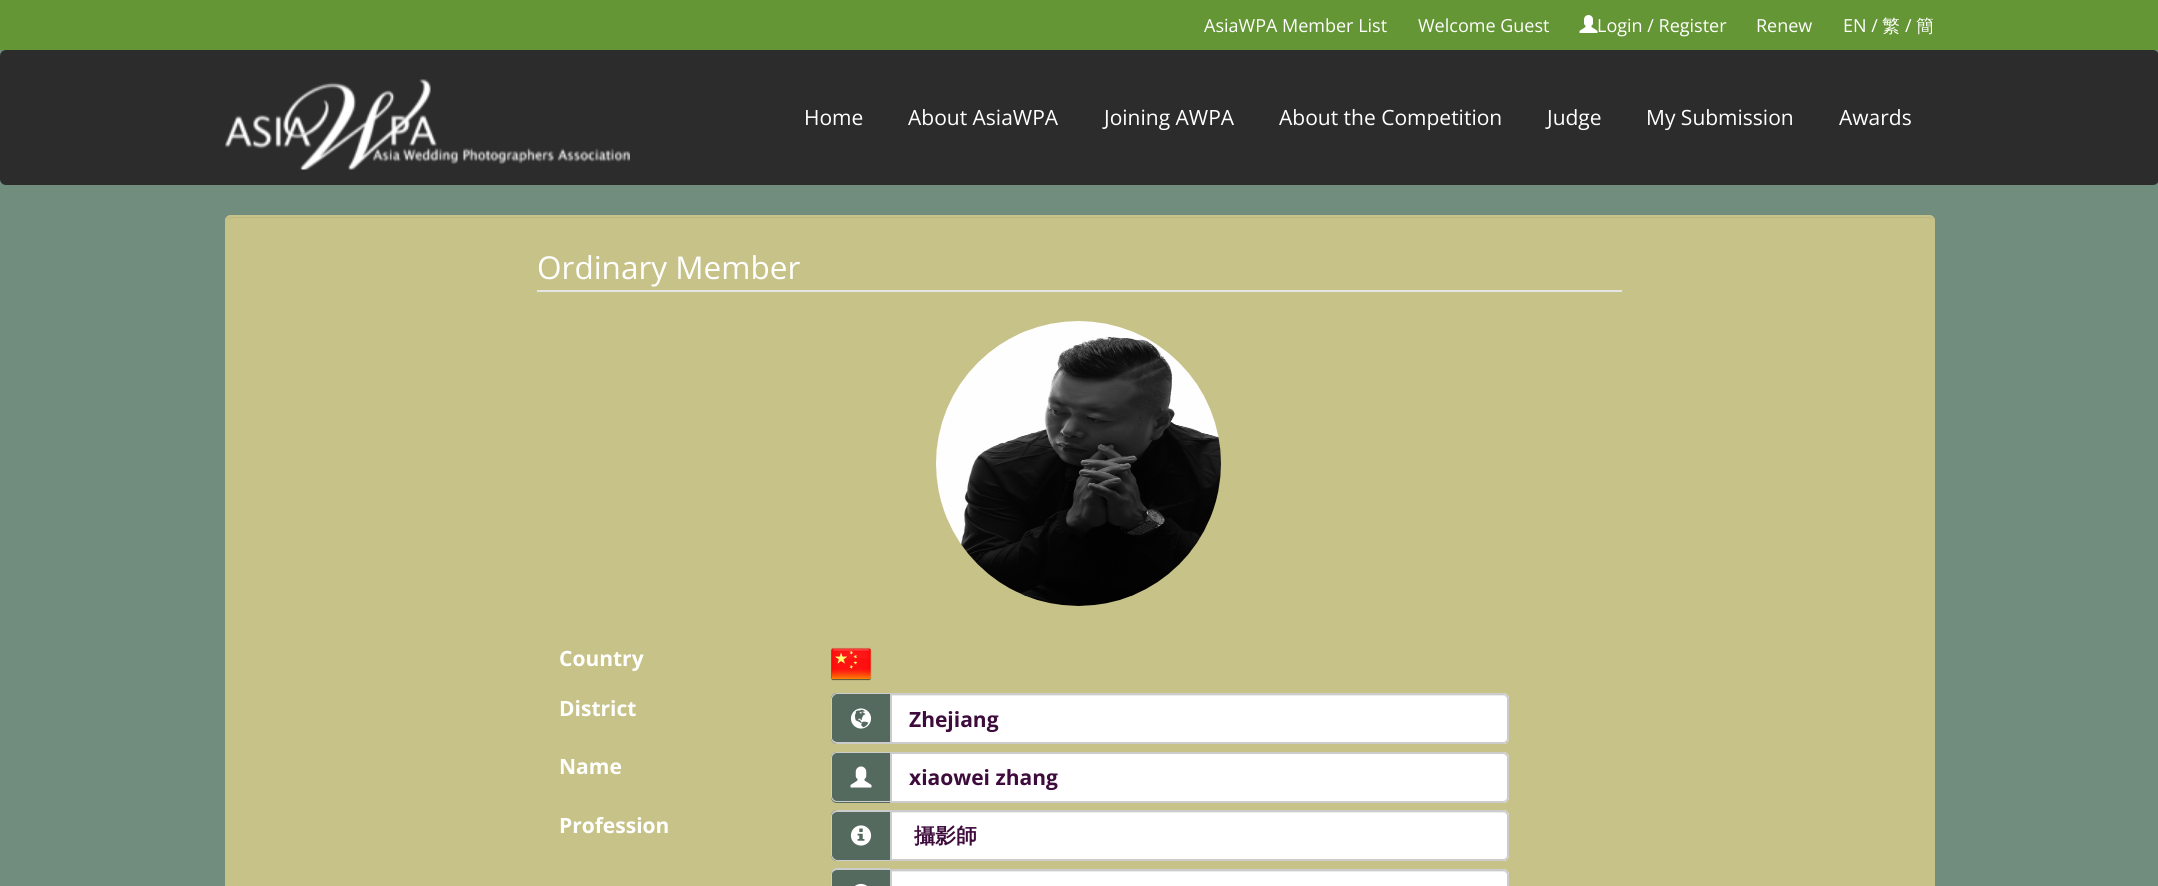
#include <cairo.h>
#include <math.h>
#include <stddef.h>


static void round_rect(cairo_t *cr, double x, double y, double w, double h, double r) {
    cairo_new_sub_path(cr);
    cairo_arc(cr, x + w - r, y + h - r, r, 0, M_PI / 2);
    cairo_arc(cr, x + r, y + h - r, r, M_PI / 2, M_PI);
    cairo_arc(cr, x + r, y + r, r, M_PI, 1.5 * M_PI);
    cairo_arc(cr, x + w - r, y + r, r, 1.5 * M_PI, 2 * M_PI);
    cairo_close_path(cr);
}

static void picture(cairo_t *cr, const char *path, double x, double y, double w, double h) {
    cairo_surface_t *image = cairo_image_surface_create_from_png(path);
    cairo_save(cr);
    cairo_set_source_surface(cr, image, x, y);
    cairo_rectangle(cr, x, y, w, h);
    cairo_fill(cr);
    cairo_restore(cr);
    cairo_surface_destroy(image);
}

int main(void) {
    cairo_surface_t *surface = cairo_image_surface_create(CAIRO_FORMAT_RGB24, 2158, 886);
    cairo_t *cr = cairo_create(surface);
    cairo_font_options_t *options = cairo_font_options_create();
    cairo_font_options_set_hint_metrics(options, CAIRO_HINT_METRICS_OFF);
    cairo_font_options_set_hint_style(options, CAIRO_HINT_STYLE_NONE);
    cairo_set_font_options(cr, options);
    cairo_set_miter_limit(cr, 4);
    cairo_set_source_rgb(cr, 0.443, 0.553, 0.494);
    cairo_paint(cr);
    cairo_set_source_rgb(cr, 0.392, 0.588, 0.208);
    cairo_rectangle(cr, 0, 0, 2158, 50);
    cairo_fill(cr);
    cairo_select_font_face(cr, "Open Sans", CAIRO_FONT_SLANT_NORMAL, CAIRO_FONT_WEIGHT_NORMAL);
    cairo_set_font_size(cr, 18);
    cairo_set_source_rgb(cr, 1, 1, 1);
    cairo_move_to(cr, 1204, 32);
    cairo_show_text(cr, "AsiaWPA Member List");
    cairo_move_to(cr, 1418, 32);
    cairo_show_text(cr, "Welcome Guest");
    picture(cr, "img1.png", 1579, 15, 19, 18);
    cairo_move_to(cr, 1597, 32);
    cairo_show_text(cr, "Login / Register");
    cairo_move_to(cr, 1756, 32);
    cairo_show_text(cr, "Renew");
    cairo_move_to(cr, 1843, 32);
    cairo_show_text(cr, "EN /");
    cairo_select_font_face(cr, "WenQuanYi Zen Hei Medium", CAIRO_FONT_SLANT_NORMAL, CAIRO_FONT_WEIGHT_NORMAL);
    cairo_move_to(cr, 1882, 32);
    cairo_show_text(cr, "繁");
    cairo_select_font_face(cr, "Open Sans", CAIRO_FONT_SLANT_NORMAL, CAIRO_FONT_WEIGHT_NORMAL);
    cairo_move_to(cr, 1905, 32);
    cairo_show_text(cr, "/");
    cairo_select_font_face(cr, "WenQuanYi Zen Hei Medium", CAIRO_FONT_SLANT_NORMAL, CAIRO_FONT_WEIGHT_NORMAL);
    cairo_move_to(cr, 1916, 32);
    cairo_show_text(cr, "簡");
    cairo_set_source_rgb(cr, 0.173, 0.173, 0.173);
    round_rect(cr, 0, 50, 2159, 135, 6);
    cairo_fill(cr);
    picture(cr, "img2.png", 225, 79, 405, 91);
    cairo_select_font_face(cr, "Open Sans", CAIRO_FONT_SLANT_NORMAL, CAIRO_FONT_WEIGHT_NORMAL);
    cairo_set_font_size(cr, 21);
    cairo_set_source_rgb(cr, 1, 1, 1);
    cairo_move_to(cr, 804, 125);
    cairo_show_text(cr, "Home");
    cairo_move_to(cr, 908, 125);
    cairo_show_text(cr, "About AsiaWPA");
    cairo_move_to(cr, 1104, 125);
    cairo_show_text(cr, "Joining AWPA");
    cairo_move_to(cr, 1279, 125);
    cairo_show_text(cr, "About the Competition");
    cairo_move_to(cr, 1547, 125);
    cairo_show_text(cr, "Judge");
    cairo_move_to(cr, 1646, 125);
    cairo_show_text(cr, "My Submission");
    cairo_move_to(cr, 1839, 125);
    cairo_show_text(cr, "Awards");
    cairo_set_source_rgb(cr, 0.78, 0.761, 0.533);
    round_rect(cr, 225, 215, 1710, 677, 6);
    cairo_fill(cr);
    cairo_set_source_rgb(cr, 0.741, 0.722, 0.506);
    cairo_new_path(cr);
    cairo_move_to(cr, 231, 218);
    cairo_line_to(cr, 1929, 218);
    cairo_curve_to(cr, 1931, 218, 1934, 220, 1934, 222);
    cairo_line_to(cr, 1934, 221);
    cairo_curve_to(cr, 1934, 218, 1932, 216, 1929, 216);
    cairo_line_to(cr, 232, 216);
    cairo_curve_to(cr, 230, 216, 228, 218, 227, 220);
    cairo_curve_to(cr, 228, 219, 230, 218, 231, 218);
    cairo_close_path(cr);
    cairo_fill(cr);
    round_rect(cr, 226, 216, 1708, 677, 5);
    cairo_set_source_rgb(cr, 0.78, 0.761, 0.533);
    cairo_stroke(cr);
    cairo_set_source_rgb(cr, 0.898, 0.898, 0.898);
    cairo_rectangle(cr, 537, 290, 1085, 2);
    cairo_fill(cr);
    cairo_set_font_size(cr, 31.5);
    cairo_set_source_rgb(cr, 1, 1, 1);
    cairo_move_to(cr, 537, 279);
    cairo_show_text(cr, "Ordinary Member");
    picture(cr, "img3.png", 936, 321, 285, 285);
    cairo_select_font_face(cr, "Open Sans", CAIRO_FONT_SLANT_NORMAL, CAIRO_FONT_WEIGHT_BOLD);
    cairo_set_font_size(cr, 21);
    cairo_move_to(cr, 559, 666);
    cairo_show_text(cr, "Country");
    picture(cr, "img4.png", 831, 647, 41, 34);
    cairo_move_to(cr, 559, 716);
    cairo_show_text(cr, "District");
    cairo_set_source_rgb(cr, 0.333, 0.416, 0.373);
    cairo_new_path(cr);
    cairo_move_to(cr, 837, 693);
    cairo_line_to(cr, 890, 693);
    cairo_line_to(cr, 890, 744);
    cairo_line_to(cr, 837, 744);
    cairo_curve_to(cr, 833.5, 744, 831, 741.5, 831, 738);
    cairo_line_to(cr, 831, 699);
    cairo_curve_to(cr, 831, 695.5, 833.5, 693, 837, 693);
    cairo_close_path(cr);
    cairo_fill(cr);
    cairo_set_source_rgb(cr, 0.8, 0.8, 0.8);
    cairo_set_fill_rule(cr, CAIRO_FILL_RULE_EVEN_ODD);
    cairo_new_path(cr);
    cairo_move_to(cr, 837, 693);
    cairo_line_to(cr, 890, 693);
    cairo_line_to(cr, 890, 744);
    cairo_line_to(cr, 837, 744);
    cairo_curve_to(cr, 834, 744, 831, 741, 831, 738);
    cairo_line_to(cr, 831, 699);
    cairo_curve_to(cr, 831, 696, 834, 693, 837, 693);
    cairo_close_path(cr);
    cairo_move_to(cr, 837, 694);
    cairo_line_to(cr, 890, 694);
    cairo_line_to(cr, 890, 742);
    cairo_line_to(cr, 837, 742);
    cairo_curve_to(cr, 835, 742, 832, 740, 832, 738);
    cairo_line_to(cr, 832, 699);
    cairo_curve_to(cr, 832, 697, 835, 694, 837, 694);
    cairo_close_path(cr);
    cairo_fill(cr);
    picture(cr, "img5.png", 850, 708, 22, 21);
    cairo_set_source_rgb(cr, 1, 1, 1);
    cairo_new_path(cr);
    cairo_move_to(cr, 890, 693);
    cairo_line_to(cr, 1503, 693);
    cairo_curve_to(cr, 1506.5, 693, 1509, 695.5, 1509, 699);
    cairo_line_to(cr, 1509, 738);
    cairo_curve_to(cr, 1509, 741.5, 1506.5, 744, 1503, 744);
    cairo_line_to(cr, 890, 744);
    cairo_close_path(cr);
    cairo_fill(cr);
    cairo_set_source_rgb(cr, 0.925, 0.925, 0.925);
    cairo_set_fill_rule(cr, CAIRO_FILL_RULE_WINDING);
    cairo_new_path(cr);
    cairo_move_to(cr, 891, 696);
    cairo_line_to(cr, 1503, 696);
    cairo_curve_to(cr, 1505, 696, 1508, 698, 1508, 700);
    cairo_curve_to(cr, 1508, 697, 1506, 695, 1503, 695);
    cairo_line_to(cr, 891, 695);
    cairo_close_path(cr);
    cairo_fill(cr);
    cairo_new_path(cr);
    cairo_move_to(cr, 891, 694);
    cairo_line_to(cr, 1503, 694);
    cairo_curve_to(cr, 1506, 694, 1508, 696, 1508, 699);
    cairo_line_to(cr, 1508, 738);
    cairo_curve_to(cr, 1508, 741, 1506, 743, 1503, 743);
    cairo_line_to(cr, 891, 743);
    cairo_close_path(cr);
    cairo_set_source_rgb(cr, 0.8, 0.8, 0.8);
    cairo_stroke(cr);
    cairo_set_source_rgb(cr, 0.243, 0.047, 0.235);
    cairo_move_to(cr, 909, 727);
    cairo_show_text(cr, "Zhejiang");
    cairo_set_source_rgb(cr, 1, 1, 1);
    cairo_move_to(cr, 559, 774);
    cairo_show_text(cr, "Name");
    cairo_set_source_rgb(cr, 0.333, 0.416, 0.373);
    cairo_new_path(cr);
    cairo_move_to(cr, 837, 752);
    cairo_line_to(cr, 890, 752);
    cairo_line_to(cr, 890, 803);
    cairo_line_to(cr, 837, 803);
    cairo_curve_to(cr, 833.5, 803, 831, 800.5, 831, 797);
    cairo_line_to(cr, 831, 758);
    cairo_curve_to(cr, 831, 754.5, 833.5, 752, 837, 752);
    cairo_close_path(cr);
    cairo_fill(cr);
    cairo_set_source_rgb(cr, 0.8, 0.8, 0.8);
    cairo_set_fill_rule(cr, CAIRO_FILL_RULE_EVEN_ODD);
    cairo_new_path(cr);
    cairo_move_to(cr, 837, 752);
    cairo_line_to(cr, 890, 752);
    cairo_line_to(cr, 890, 802);
    cairo_line_to(cr, 837, 802);
    cairo_curve_to(cr, 834, 802, 831, 800, 831, 796);
    cairo_line_to(cr, 831, 758);
    cairo_curve_to(cr, 831, 754, 834, 752, 837, 752);
    cairo_close_path(cr);
    cairo_move_to(cr, 837, 753);
    cairo_line_to(cr, 890, 753);
    cairo_line_to(cr, 890, 801);
    cairo_line_to(cr, 837, 801);
    cairo_curve_to(cr, 835, 801, 832, 799, 832, 796);
    cairo_line_to(cr, 832, 758);
    cairo_curve_to(cr, 832, 755, 835, 753, 837, 753);
    cairo_close_path(cr);
    cairo_fill(cr);
    picture(cr, "img6.png", 850, 766, 22, 22);
    cairo_set_source_rgb(cr, 1, 1, 1);
    cairo_new_path(cr);
    cairo_move_to(cr, 890, 752);
    cairo_line_to(cr, 1503, 752);
    cairo_curve_to(cr, 1506.5, 752, 1509, 754.5, 1509, 758);
    cairo_line_to(cr, 1509, 797);
    cairo_curve_to(cr, 1509, 800.5, 1506.5, 803, 1503, 803);
    cairo_line_to(cr, 890, 803);
    cairo_close_path(cr);
    cairo_fill(cr);
    cairo_set_source_rgb(cr, 0.925, 0.925, 0.925);
    cairo_set_fill_rule(cr, CAIRO_FILL_RULE_WINDING);
    cairo_new_path(cr);
    cairo_move_to(cr, 891, 754);
    cairo_line_to(cr, 1503, 754);
    cairo_curve_to(cr, 1505, 754, 1508, 757, 1508, 759);
    cairo_curve_to(cr, 1508, 756, 1506, 753, 1503, 753);
    cairo_line_to(cr, 891, 753);
    cairo_close_path(cr);
    cairo_fill(cr);
    cairo_new_path(cr);
    cairo_move_to(cr, 891, 753);
    cairo_line_to(cr, 1503, 753);
    cairo_curve_to(cr, 1506, 753, 1508, 755, 1508, 758);
    cairo_line_to(cr, 1508, 797);
    cairo_curve_to(cr, 1508, 800, 1506, 802, 1503, 802);
    cairo_line_to(cr, 891, 802);
    cairo_close_path(cr);
    cairo_set_source_rgb(cr, 0.8, 0.8, 0.8);
    cairo_stroke(cr);
    cairo_set_source_rgb(cr, 0.243, 0.047, 0.235);
    cairo_move_to(cr, 909, 785);
    cairo_show_text(cr, "xiaowei zhang");
    cairo_set_source_rgb(cr, 1, 1, 1);
    cairo_move_to(cr, 559, 833);
    cairo_show_text(cr, "Profession");
    cairo_set_source_rgb(cr, 0.333, 0.416, 0.373);
    cairo_new_path(cr);
    cairo_move_to(cr, 837, 810);
    cairo_line_to(cr, 890, 810);
    cairo_line_to(cr, 890, 861);
    cairo_line_to(cr, 837, 861);
    cairo_curve_to(cr, 833.5, 861, 831, 858.5, 831, 855);
    cairo_line_to(cr, 831, 816);
    cairo_curve_to(cr, 831, 812.5, 833.5, 810, 837, 810);
    cairo_close_path(cr);
    cairo_fill(cr);
    cairo_set_source_rgb(cr, 0.8, 0.8, 0.8);
    cairo_set_fill_rule(cr, CAIRO_FILL_RULE_EVEN_ODD);
    cairo_new_path(cr);
    cairo_move_to(cr, 837, 810);
    cairo_line_to(cr, 890, 810);
    cairo_line_to(cr, 890, 861);
    cairo_line_to(cr, 837, 861);
    cairo_curve_to(cr, 834, 861, 831, 858, 831, 855);
    cairo_line_to(cr, 831, 816);
    cairo_curve_to(cr, 831, 813, 834, 810, 837, 810);
    cairo_close_path(cr);
    cairo_move_to(cr, 837, 812);
    cairo_line_to(cr, 890, 812);
    cairo_line_to(cr, 890, 860);
    cairo_line_to(cr, 837, 860);
    cairo_curve_to(cr, 835, 860, 832, 857, 832, 855);
    cairo_line_to(cr, 832, 816);
    cairo_curve_to(cr, 832, 814, 835, 812, 837, 812);
    cairo_close_path(cr);
    cairo_fill(cr);
    picture(cr, "img7.png", 850, 825, 22, 21);
    cairo_set_source_rgb(cr, 1, 1, 1);
    cairo_new_path(cr);
    cairo_move_to(cr, 890, 810);
    cairo_line_to(cr, 1503, 810);
    cairo_curve_to(cr, 1506.5, 810, 1509, 812.5, 1509, 816);
    cairo_line_to(cr, 1509, 855);
    cairo_curve_to(cr, 1509, 858.5, 1506.5, 861, 1503, 861);
    cairo_line_to(cr, 890, 861);
    cairo_close_path(cr);
    cairo_fill(cr);
    cairo_set_source_rgb(cr, 0.925, 0.925, 0.925);
    cairo_set_fill_rule(cr, CAIRO_FILL_RULE_WINDING);
    cairo_new_path(cr);
    cairo_move_to(cr, 891, 813);
    cairo_line_to(cr, 1503, 813);
    cairo_curve_to(cr, 1505, 813, 1508, 815, 1508, 818);
    cairo_curve_to(cr, 1508, 815, 1506, 812, 1503, 812);
    cairo_line_to(cr, 891, 812);
    cairo_close_path(cr);
    cairo_fill(cr);
    cairo_new_path(cr);
    cairo_move_to(cr, 891, 811);
    cairo_line_to(cr, 1503, 811);
    cairo_curve_to(cr, 1506, 811, 1508, 813, 1508, 816);
    cairo_line_to(cr, 1508, 855);
    cairo_curve_to(cr, 1508, 858, 1506, 860, 1503, 860);
    cairo_line_to(cr, 891, 860);
    cairo_close_path(cr);
    cairo_set_source_rgb(cr, 0.8, 0.8, 0.8);
    cairo_stroke(cr);
    cairo_select_font_face(cr, "WenQuanYi Zen Hei", CAIRO_FONT_SLANT_NORMAL, CAIRO_FONT_WEIGHT_BOLD);
    cairo_set_source_rgb(cr, 0.243, 0.047, 0.235);
    cairo_move_to(cr, 914, 843);
    cairo_show_text(cr, "攝影師");
    cairo_set_source_rgb(cr, 0.333, 0.416, 0.373);
    cairo_new_path(cr);
    cairo_move_to(cr, 837, 869);
    cairo_line_to(cr, 890, 869);
    cairo_line_to(cr, 890, 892);
    cairo_line_to(cr, 837, 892);
    cairo_curve_to(cr, 833.5, 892, 831, 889.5, 831, 886);
    cairo_line_to(cr, 831, 875);
    cairo_curve_to(cr, 831, 871.5, 833.5, 869, 837, 869);
    cairo_close_path(cr);
    cairo_fill(cr);
    cairo_set_source_rgb(cr, 0.8, 0.8, 0.8);
    cairo_set_fill_rule(cr, CAIRO_FILL_RULE_EVEN_ODD);
    cairo_new_path(cr);
    cairo_move_to(cr, 837, 868);
    cairo_line_to(cr, 890, 868);
    cairo_line_to(cr, 890, 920);
    cairo_line_to(cr, 837, 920);
    cairo_curve_to(cr, 834, 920, 831, 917, 831, 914);
    cairo_line_to(cr, 831, 874);
    cairo_curve_to(cr, 831, 871, 834, 868, 837, 868);
    cairo_close_path(cr);
    cairo_move_to(cr, 837, 870);
    cairo_line_to(cr, 890, 870);
    cairo_line_to(cr, 890, 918);
    cairo_line_to(cr, 837, 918);
    cairo_curve_to(cr, 835, 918, 832, 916, 832, 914);
    cairo_line_to(cr, 832, 874);
    cairo_curve_to(cr, 832, 872, 835, 870, 837, 870);
    cairo_close_path(cr);
    cairo_fill(cr);
    picture(cr, "img8.png", 855, 883, 12, 3);
    cairo_set_source_rgb(cr, 1, 1, 1);
    cairo_new_path(cr);
    cairo_move_to(cr, 890, 869);
    cairo_line_to(cr, 1503, 869);
    cairo_curve_to(cr, 1506.5, 869, 1509, 871.5, 1509, 875);
    cairo_line_to(cr, 1509, 886);
    cairo_curve_to(cr, 1509, 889.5, 1506.5, 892, 1503, 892);
    cairo_line_to(cr, 890, 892);
    cairo_close_path(cr);
    cairo_fill(cr);
    cairo_set_source_rgb(cr, 0.925, 0.925, 0.925);
    cairo_set_fill_rule(cr, CAIRO_FILL_RULE_WINDING);
    cairo_new_path(cr);
    cairo_move_to(cr, 891, 872);
    cairo_line_to(cr, 1503, 872);
    cairo_curve_to(cr, 1505, 872, 1508, 874, 1508, 876);
    cairo_curve_to(cr, 1508, 873, 1506, 870, 1503, 870);
    cairo_line_to(cr, 891, 870);
    cairo_close_path(cr);
    cairo_fill(cr);
    cairo_new_path(cr);
    cairo_move_to(cr, 891, 870);
    cairo_line_to(cr, 1503, 870);
    cairo_curve_to(cr, 1506, 870, 1508, 872, 1508, 875);
    cairo_line_to(cr, 1508, 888);
    cairo_curve_to(cr, 1508, 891, 1506, 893, 1503, 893);
    cairo_line_to(cr, 891, 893);
    cairo_close_path(cr);
    cairo_set_source_rgb(cr, 0.8, 0.8, 0.8);
    cairo_stroke(cr);
    cairo_surface_write_to_png(surface, "page.png");
    cairo_font_options_destroy(options);
    cairo_destroy(cr);
    cairo_surface_destroy(surface);
    return 0;
}
